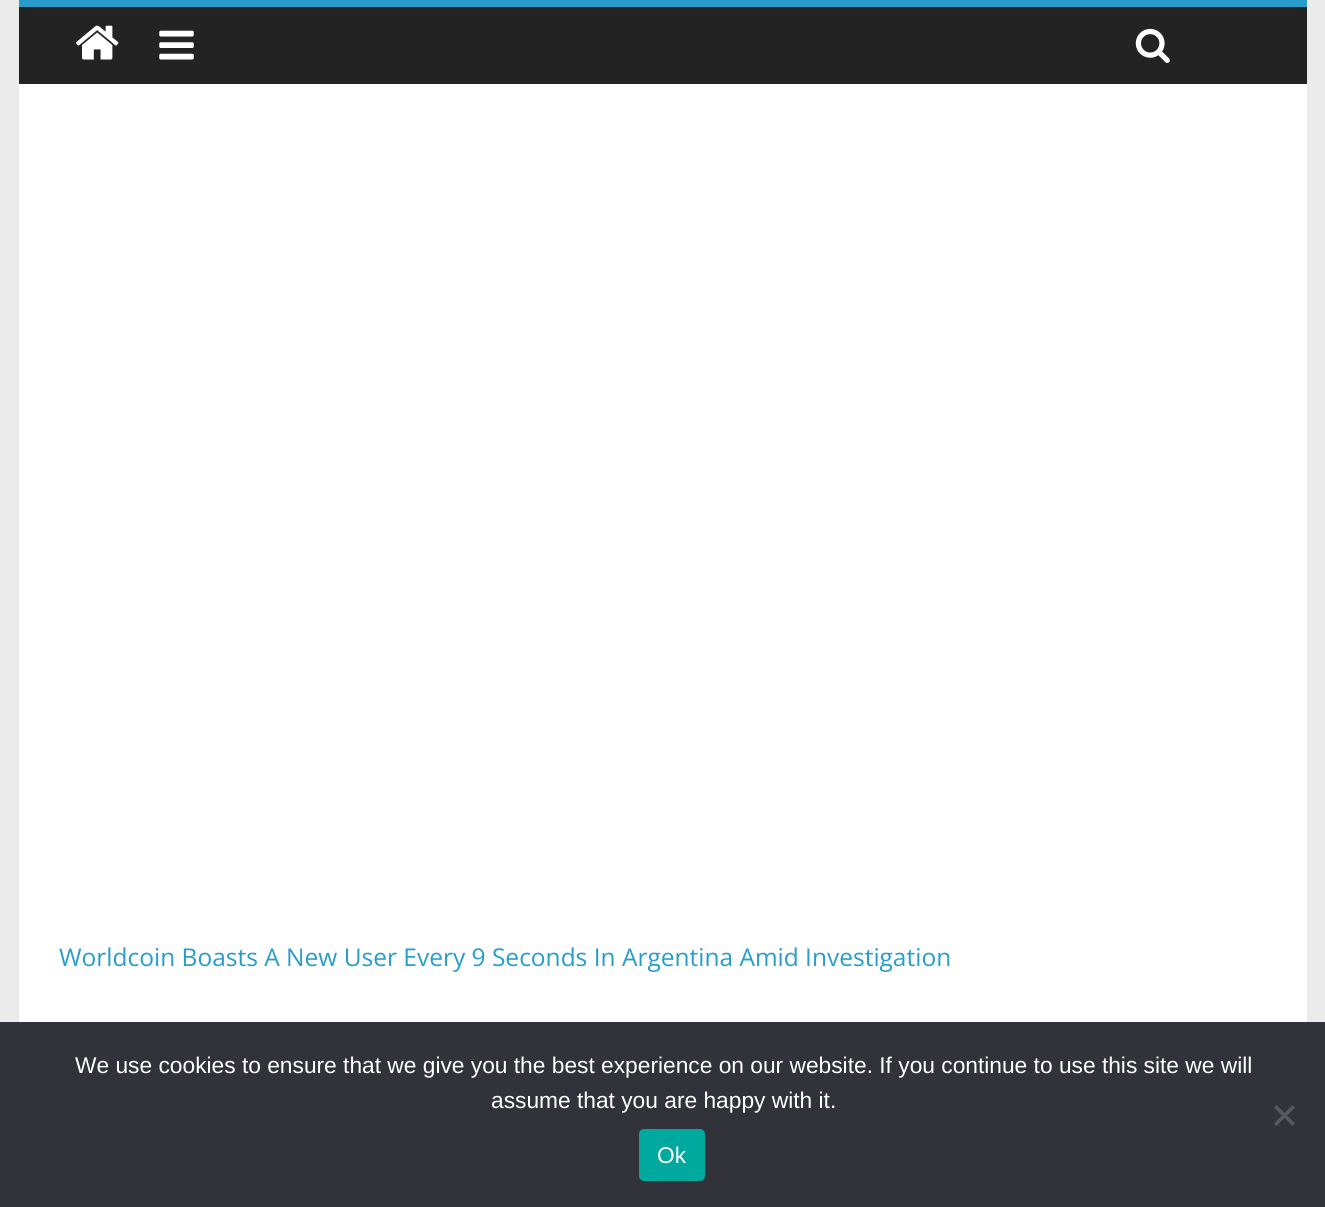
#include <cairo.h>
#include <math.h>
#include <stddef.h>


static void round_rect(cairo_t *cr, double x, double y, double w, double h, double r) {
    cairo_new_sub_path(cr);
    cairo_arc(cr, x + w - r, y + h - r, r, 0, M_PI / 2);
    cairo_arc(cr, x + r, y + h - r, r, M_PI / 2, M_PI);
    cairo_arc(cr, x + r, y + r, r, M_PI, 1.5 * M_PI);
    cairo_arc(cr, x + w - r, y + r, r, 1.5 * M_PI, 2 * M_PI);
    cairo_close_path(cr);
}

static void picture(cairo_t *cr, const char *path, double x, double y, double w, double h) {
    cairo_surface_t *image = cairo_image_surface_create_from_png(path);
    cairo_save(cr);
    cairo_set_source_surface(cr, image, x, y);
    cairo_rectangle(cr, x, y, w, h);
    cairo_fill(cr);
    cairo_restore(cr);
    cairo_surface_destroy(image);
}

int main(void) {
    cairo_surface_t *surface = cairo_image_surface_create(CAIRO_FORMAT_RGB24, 1325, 1207);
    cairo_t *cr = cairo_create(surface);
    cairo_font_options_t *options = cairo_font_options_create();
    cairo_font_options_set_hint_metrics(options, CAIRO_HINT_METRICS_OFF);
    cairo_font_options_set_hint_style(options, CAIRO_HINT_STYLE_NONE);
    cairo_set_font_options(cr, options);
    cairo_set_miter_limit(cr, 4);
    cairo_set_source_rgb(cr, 0.918, 0.918, 0.918);
    cairo_paint(cr);
    cairo_set_source_rgb(cr, 0.137, 0.137, 0.137);
    cairo_rectangle(cr, 19, 7, 1288, 77);
    cairo_fill(cr);
    cairo_set_source_rgb(cr, 0.157, 0.616, 0.8);
    cairo_rectangle(cr, 19, 0, 1288, 7);
    cairo_fill(cr);
    picture(cr, "img1.png", 76, 25, 43, 35);
    picture(cr, "img2.png", 159, 30, 35, 30);
    picture(cr, "img3.png", 1135, 28, 35, 35);
    cairo_set_source_rgb(cr, 1, 1, 1);
    cairo_rectangle(cr, 19, 84, 1288, 938);
    cairo_fill(cr);
    cairo_select_font_face(cr, "Open Sans", CAIRO_FONT_SLANT_NORMAL, CAIRO_FONT_WEIGHT_NORMAL);
    cairo_set_font_size(cr, 24.5);
    cairo_set_source_rgb(cr, 0.157, 0.616, 0.8);
    cairo_move_to(cr, 59, 966);
    cairo_show_text(cr, "Worldcoin Boasts A New User Every 9 Seconds In Argentina Amid Investigation");
    cairo_set_source_rgb(cr, 0.196, 0.196, 0.227);
    cairo_rectangle(cr, 0, 1022, 1325, 185);
    cairo_fill(cr);
    cairo_select_font_face(cr, "Liberation Sans", CAIRO_FONT_SLANT_NORMAL, CAIRO_FONT_WEIGHT_NORMAL);
    cairo_set_font_size(cr, 22.75);
    cairo_set_source_rgb(cr, 1, 1, 1);
    cairo_move_to(cr, 75, 1073);
    cairo_show_text(cr, "We use cookies to ensure that we give you the best experience on our website. If you continue to use this site we will");
    cairo_move_to(cr, 491, 1108);
    cairo_show_text(cr, "assume that you are happy with it.");
    cairo_set_source_rgb(cr, 0.349, 0.349, 0.365);
    cairo_new_path(cr);
    cairo_move_to(cr, 1292.5, 1105);
    cairo_line_to(cr, 1295, 1107.5);
    cairo_line_to(cr, 1276.5, 1126);
    cairo_line_to(cr, 1274, 1123.5);
    cairo_close_path(cr);
    cairo_fill(cr);
    cairo_new_path(cr);
    cairo_move_to(cr, 1274, 1107.5);
    cairo_line_to(cr, 1276.5, 1105);
    cairo_line_to(cr, 1295, 1123.5);
    cairo_line_to(cr, 1292.5, 1126);
    cairo_close_path(cr);
    cairo_fill(cr);
    cairo_set_source_rgb(cr, 0, 0.663, 0.616);
    round_rect(cr, 639, 1129, 66, 52, 5);
    cairo_fill(cr);
    cairo_set_source_rgb(cr, 1, 1, 1);
    cairo_move_to(cr, 657, 1163);
    cairo_show_text(cr, "Ok");
    cairo_surface_write_to_png(surface, "page.png");
    cairo_font_options_destroy(options);
    cairo_destroy(cr);
    cairo_surface_destroy(surface);
    return 0;
}
